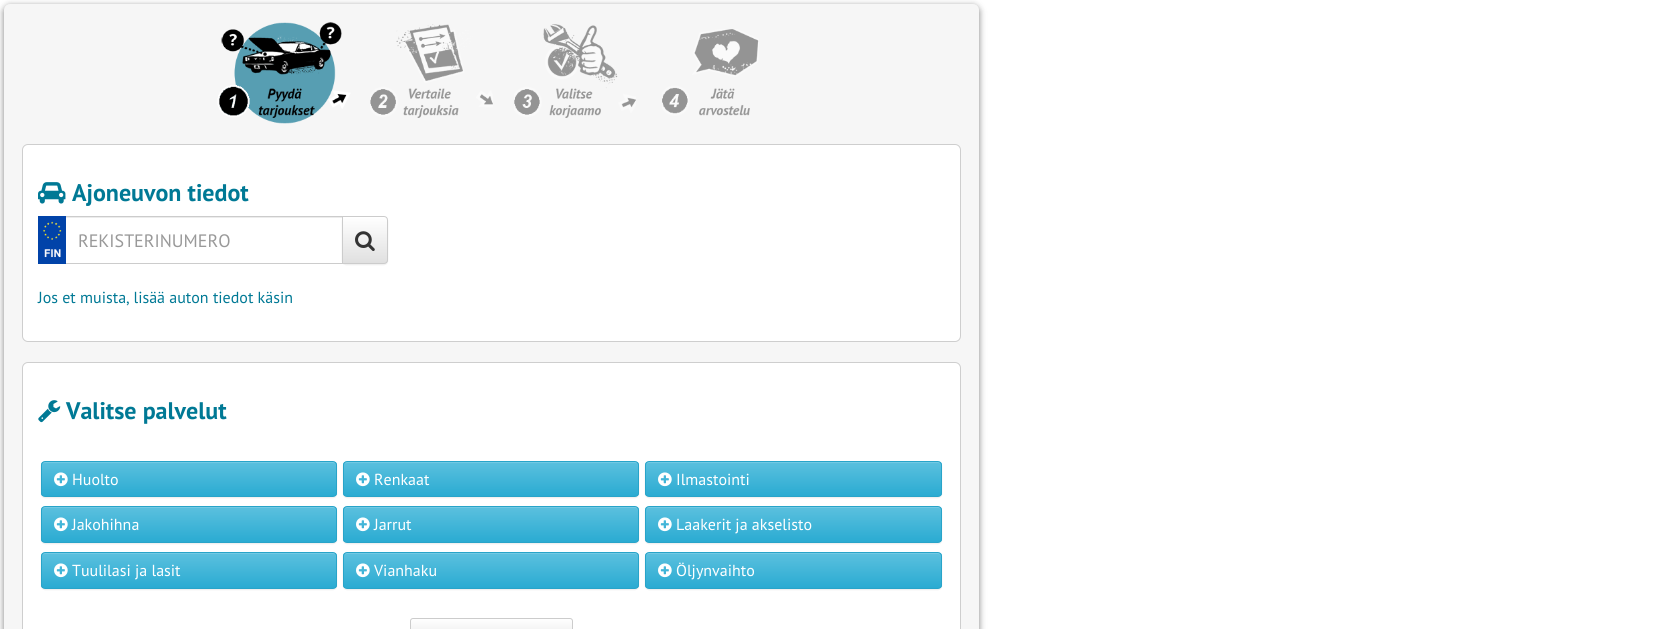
#include <cairo.h>
#include <math.h>
#include <stddef.h>


static void round_rect(cairo_t *cr, double x, double y, double w, double h, double r) {
    cairo_new_sub_path(cr);
    cairo_arc(cr, x + w - r, y + h - r, r, 0, M_PI / 2);
    cairo_arc(cr, x + r, y + h - r, r, M_PI / 2, M_PI);
    cairo_arc(cr, x + r, y + r, r, M_PI, 1.5 * M_PI);
    cairo_arc(cr, x + w - r, y + r, r, 1.5 * M_PI, 2 * M_PI);
    cairo_close_path(cr);
}

static void shadow(cairo_t *cr, double x, double y, double w, double h, double r, double blur, double alpha) {
    cairo_push_group_with_content(cr, CAIRO_CONTENT_ALPHA);
    cairo_set_operator(cr, CAIRO_OPERATOR_SOURCE);
    for (int i = 15; i >= -15 && fmin(w, h) + blur * i / 3 > 0; i -= 2) {
        double e = blur * i / 6;
        cairo_set_source_rgba(cr, 0, 0, 0, alpha * erfc((i - 1) / 8.5) / 2);
        round_rect(cr, x - e, y - e, w + 2 * e, h + 2 * e, fmax(0, fmin(r + e + blur * .6, fmin(w, h) / 2 + e)));
        cairo_fill(cr);
    }
    cairo_pattern_t *soft = cairo_pop_group(cr);
    cairo_mask(cr, soft);
    cairo_pattern_destroy(soft);
}

static void picture(cairo_t *cr, const char *path, double x, double y, double w, double h) {
    cairo_surface_t *image = cairo_image_surface_create_from_png(path);
    cairo_save(cr);
    cairo_set_source_surface(cr, image, x, y);
    cairo_rectangle(cr, x, y, w, h);
    cairo_fill(cr);
    cairo_restore(cr);
    cairo_surface_destroy(image);
}

int main(void) {
    cairo_surface_t *surface = cairo_image_surface_create(CAIRO_FORMAT_RGB24, 1679, 629);
    cairo_t *cr = cairo_create(surface);
    cairo_font_options_t *options = cairo_font_options_create();
    cairo_font_options_set_hint_metrics(options, CAIRO_HINT_METRICS_OFF);
    cairo_font_options_set_hint_style(options, CAIRO_HINT_STYLE_NONE);
    cairo_set_font_options(cr, options);
    cairo_set_miter_limit(cr, 4);
    cairo_pattern_t *gradient;
    cairo_set_source_rgb(cr, 1, 1, 1);
    cairo_paint(cr);
    cairo_set_source_rgb(cr, 0, 0, 0);
    shadow(cr, 4, 6, 975, 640, 6, 3.5, 0.5);
    cairo_set_source_rgb(cr, 0.961, 0.961, 0.961);
    round_rect(cr, 4, 4, 975, 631, 6);
    cairo_fill(cr);
    picture(cr, "img1.png", 217, 22, 134, 102);
    picture(cr, "img2.png", 370, 24, 123, 94);
    picture(cr, "img3.png", 514, 24, 122, 94);
    picture(cr, "img4.png", 662, 29, 97, 87);
    cairo_set_source_rgb(cr, 1, 1, 1);
    round_rect(cr, 22.5, 144.5, 938, 197, 5.5);
    cairo_fill_preserve(cr);
    cairo_set_source_rgb(cr, 0.808, 0.808, 0.808);
    cairo_set_line_width(cr, 1);
    cairo_stroke(cr);
    picture(cr, "img5.png", 38, 182, 28, 22);
    cairo_select_font_face(cr, "PT Sans", CAIRO_FONT_SLANT_NORMAL, CAIRO_FONT_WEIGHT_BOLD);
    cairo_set_font_size(cr, 24);
    cairo_set_source_rgb(cr, 0, 0.475, 0.584);
    cairo_move_to(cr, 72, 201);
    cairo_show_text(cr, "Ajoneuvon tiedot");
    picture(cr, "img6.png", 38, 216, 28, 48);
    cairo_set_source_rgb(cr, 0.925, 0.925, 0.925);
    cairo_rectangle(cr, 66, 217, 276, 1);
    cairo_fill(cr);
    cairo_set_source_rgb(cr, 0.8, 0.8, 0.8);
    cairo_rectangle(cr, 66, 216, 277, 1);
    cairo_fill(cr);
    cairo_rectangle(cr, 66, 263, 277, 1);
    cairo_fill(cr);
    cairo_select_font_face(cr, "PT Sans", CAIRO_FONT_SLANT_NORMAL, CAIRO_FONT_WEIGHT_NORMAL);
    cairo_set_font_size(cr, 18);
    cairo_set_source_rgb(cr, 0.6, 0.6, 0.6);
    cairo_move_to(cr, 78, 247);
    cairo_show_text(cr, "REKISTERINUMERO");
    cairo_set_source_rgb(cr, 0, 0, 0);
    shadow(cr, 342, 217, 46, 48, 4, 0.5, 0.07);
    cairo_save(cr);
    cairo_new_path(cr);
    cairo_move_to(cr, 342, 216);
    cairo_line_to(cr, 384, 216);
    cairo_curve_to(cr, 386, 216, 388, 218, 388, 220);
    cairo_line_to(cr, 388, 260);
    cairo_curve_to(cr, 388, 262, 386, 264, 384, 264);
    cairo_line_to(cr, 342, 264);
    cairo_close_path(cr);
    cairo_clip(cr);
    gradient = cairo_pattern_create_linear(365, 217, 365, 263);
    cairo_pattern_add_color_stop_rgba(gradient, 0, 1, 1, 1, 1);
    cairo_pattern_add_color_stop_rgba(gradient, 1, 0.878, 0.878, 0.878, 1);
    cairo_set_source(cr, gradient);
    cairo_pattern_destroy(gradient);
    cairo_rectangle(cr, 343, 217, 45, 46);
    cairo_fill(cr);
    cairo_restore(cr);
    cairo_new_path(cr);
    cairo_move_to(cr, 342.5, 216.5);
    cairo_line_to(cr, 384, 216.5);
    cairo_curve_to(cr, 386, 216.5, 387.5, 218, 387.5, 220);
    cairo_line_to(cr, 387.5, 260);
    cairo_curve_to(cr, 387.5, 262, 386, 263.5, 384, 263.5);
    cairo_line_to(cr, 342.5, 263.5);
    cairo_close_path(cr);
    cairo_set_source_rgb(cr, 0.8, 0.8, 0.8);
    cairo_stroke(cr);
    picture(cr, "img7.png", 355, 231, 20, 20);
    cairo_set_font_size(cr, 16);
    cairo_set_source_rgb(cr, 0, 0.475, 0.584);
    cairo_move_to(cr, 38, 303);
    cairo_show_text(cr, "Jos et muista, lisää auton tiedot käsin");
    cairo_set_source_rgb(cr, 1, 1, 1);
    round_rect(cr, 22.5, 362.5, 938, 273, 5.5);
    cairo_fill_preserve(cr);
    cairo_set_source_rgb(cr, 0.808, 0.808, 0.808);
    cairo_stroke(cr);
    picture(cr, "img8.png", 38, 400, 23, 23);
    cairo_select_font_face(cr, "PT Sans", CAIRO_FONT_SLANT_NORMAL, CAIRO_FONT_WEIGHT_BOLD);
    cairo_set_font_size(cr, 24);
    cairo_set_source_rgb(cr, 0, 0.475, 0.584);
    cairo_move_to(cr, 66, 419);
    cairo_show_text(cr, "Valitse palvelut");
    cairo_set_source_rgb(cr, 0, 0, 0);
    shadow(cr, 41, 462, 296, 36, 4, 0.5, 0.07);
    cairo_save(cr);
    round_rect(cr, 41, 461, 296, 36, 4);
    cairo_clip(cr);
    gradient = cairo_pattern_create_linear(189, 462, 189, 496);
    cairo_pattern_add_color_stop_rgba(gradient, 0, 0.357, 0.753, 0.871, 1);
    cairo_pattern_add_color_stop_rgba(gradient, 1, 0.165, 0.671, 0.824, 1);
    cairo_set_source(cr, gradient);
    cairo_pattern_destroy(gradient);
    cairo_rectangle(cr, 41, 462, 296, 34);
    cairo_fill(cr);
    cairo_restore(cr);
    cairo_set_source_rgb(cr, 0.451, 0.788, 0.89);
    cairo_new_path(cr);
    cairo_move_to(cr, 45, 463);
    cairo_line_to(cr, 333, 463);
    cairo_curve_to(cr, 335, 463, 336, 464, 336, 466);
    cairo_line_to(cr, 335, 463);
    cairo_line_to(cr, 334, 462);
    cairo_line_to(cr, 45, 462);
    cairo_curve_to(cr, 43, 462, 42, 464, 42, 466);
    cairo_curve_to(cr, 42, 464, 43, 463, 45, 463);
    cairo_close_path(cr);
    cairo_fill(cr);
    round_rect(cr, 41.5, 461.5, 295, 35, 3.5);
    cairo_set_source_rgb(cr, 0.157, 0.643, 0.788);
    cairo_stroke(cr);
    picture(cr, "img9.png", 54, 472, 14, 15);
    cairo_select_font_face(cr, "PT Sans", CAIRO_FONT_SLANT_NORMAL, CAIRO_FONT_WEIGHT_NORMAL);
    cairo_set_font_size(cr, 16);
    cairo_set_source_rgb(cr, 1, 1, 1);
    cairo_move_to(cr, 72, 485);
    cairo_show_text(cr, "Huolto");
    cairo_set_source_rgb(cr, 0, 0, 0);
    shadow(cr, 343, 462, 296, 36, 4, 0.5, 0.07);
    cairo_save(cr);
    round_rect(cr, 343, 461, 296, 36, 4);
    cairo_clip(cr);
    gradient = cairo_pattern_create_linear(491, 462, 491, 496);
    cairo_pattern_add_color_stop_rgba(gradient, 0, 0.357, 0.753, 0.871, 1);
    cairo_pattern_add_color_stop_rgba(gradient, 1, 0.165, 0.671, 0.824, 1);
    cairo_set_source(cr, gradient);
    cairo_pattern_destroy(gradient);
    cairo_rectangle(cr, 343, 462, 296, 34);
    cairo_fill(cr);
    cairo_restore(cr);
    cairo_set_source_rgb(cr, 0.451, 0.788, 0.89);
    cairo_new_path(cr);
    cairo_move_to(cr, 347, 463);
    cairo_line_to(cr, 635, 463);
    cairo_curve_to(cr, 637, 463, 638, 464, 638, 466);
    cairo_line_to(cr, 637, 463);
    cairo_line_to(cr, 636, 462);
    cairo_line_to(cr, 347, 462);
    cairo_curve_to(cr, 345, 462, 344, 464, 344, 466);
    cairo_curve_to(cr, 344, 464, 345, 463, 347, 463);
    cairo_close_path(cr);
    cairo_fill(cr);
    round_rect(cr, 343.5, 461.5, 295, 35, 3.5);
    cairo_set_source_rgb(cr, 0.157, 0.643, 0.788);
    cairo_stroke(cr);
    picture(cr, "img9.png", 356, 472, 14, 15);
    cairo_set_source_rgb(cr, 1, 1, 1);
    cairo_move_to(cr, 374, 485);
    cairo_show_text(cr, "Renkaat");
    cairo_set_source_rgb(cr, 0, 0, 0);
    shadow(cr, 645, 462, 297, 36, 4, 0.5, 0.07);
    cairo_save(cr);
    round_rect(cr, 645, 461, 297, 36, 4);
    cairo_clip(cr);
    gradient = cairo_pattern_create_linear(794, 462, 794, 496);
    cairo_pattern_add_color_stop_rgba(gradient, 0, 0.357, 0.753, 0.871, 1);
    cairo_pattern_add_color_stop_rgba(gradient, 1, 0.165, 0.671, 0.824, 1);
    cairo_set_source(cr, gradient);
    cairo_pattern_destroy(gradient);
    cairo_rectangle(cr, 645, 462, 297, 34);
    cairo_fill(cr);
    cairo_restore(cr);
    cairo_set_source_rgb(cr, 0.451, 0.788, 0.89);
    cairo_new_path(cr);
    cairo_move_to(cr, 649, 463);
    cairo_line_to(cr, 938, 463);
    cairo_curve_to(cr, 940, 463, 941, 464, 941, 466);
    cairo_line_to(cr, 940, 463);
    cairo_line_to(cr, 939, 462);
    cairo_line_to(cr, 649, 462);
    cairo_curve_to(cr, 647, 462, 646, 464, 646, 466);
    cairo_curve_to(cr, 646, 464, 647, 463, 649, 463);
    cairo_close_path(cr);
    cairo_fill(cr);
    round_rect(cr, 645.5, 461.5, 296, 35, 3.5);
    cairo_set_source_rgb(cr, 0.157, 0.643, 0.788);
    cairo_stroke(cr);
    picture(cr, "img9.png", 658, 472, 14, 15);
    cairo_set_source_rgb(cr, 1, 1, 1);
    cairo_move_to(cr, 676, 485);
    cairo_show_text(cr, "Ilmastointi");
    cairo_set_source_rgb(cr, 0, 0, 0);
    shadow(cr, 41, 507, 296, 37, 4, 0.5, 0.07);
    cairo_save(cr);
    round_rect(cr, 41, 506, 296, 37, 4);
    cairo_clip(cr);
    gradient = cairo_pattern_create_linear(189, 507, 189, 542);
    cairo_pattern_add_color_stop_rgba(gradient, 0, 0.357, 0.753, 0.871, 1);
    cairo_pattern_add_color_stop_rgba(gradient, 1, 0.165, 0.671, 0.824, 1);
    cairo_set_source(cr, gradient);
    cairo_pattern_destroy(gradient);
    cairo_rectangle(cr, 41, 507, 296, 35);
    cairo_fill(cr);
    cairo_restore(cr);
    cairo_set_source_rgb(cr, 0.451, 0.788, 0.89);
    cairo_new_path(cr);
    cairo_move_to(cr, 45, 508);
    cairo_line_to(cr, 333, 508);
    cairo_curve_to(cr, 335, 508, 336, 509, 336, 511);
    cairo_line_to(cr, 335, 508);
    cairo_line_to(cr, 334, 507);
    cairo_line_to(cr, 45, 507);
    cairo_curve_to(cr, 43, 507, 42, 509, 42, 511);
    cairo_curve_to(cr, 42, 509, 43, 508, 45, 508);
    cairo_close_path(cr);
    cairo_fill(cr);
    round_rect(cr, 41.5, 506.5, 295, 36, 3.5);
    cairo_set_source_rgb(cr, 0.157, 0.643, 0.788);
    cairo_stroke(cr);
    picture(cr, "img10.png", 54, 517, 14, 15);
    cairo_set_source_rgb(cr, 1, 1, 1);
    cairo_move_to(cr, 72, 530);
    cairo_show_text(cr, "Jakohihna");
    cairo_set_source_rgb(cr, 0, 0, 0);
    shadow(cr, 343, 507, 296, 37, 4, 0.5, 0.07);
    cairo_save(cr);
    round_rect(cr, 343, 506, 296, 37, 4);
    cairo_clip(cr);
    gradient = cairo_pattern_create_linear(491, 507, 491, 542);
    cairo_pattern_add_color_stop_rgba(gradient, 0, 0.357, 0.753, 0.871, 1);
    cairo_pattern_add_color_stop_rgba(gradient, 1, 0.165, 0.671, 0.824, 1);
    cairo_set_source(cr, gradient);
    cairo_pattern_destroy(gradient);
    cairo_rectangle(cr, 343, 507, 296, 35);
    cairo_fill(cr);
    cairo_restore(cr);
    cairo_set_source_rgb(cr, 0.451, 0.788, 0.89);
    cairo_new_path(cr);
    cairo_move_to(cr, 347, 508);
    cairo_line_to(cr, 635, 508);
    cairo_curve_to(cr, 637, 508, 638, 509, 638, 511);
    cairo_line_to(cr, 637, 508);
    cairo_line_to(cr, 636, 507);
    cairo_line_to(cr, 347, 507);
    cairo_curve_to(cr, 345, 507, 344, 509, 344, 511);
    cairo_curve_to(cr, 344, 509, 345, 508, 347, 508);
    cairo_close_path(cr);
    cairo_fill(cr);
    round_rect(cr, 343.5, 506.5, 295, 36, 3.5);
    cairo_set_source_rgb(cr, 0.157, 0.643, 0.788);
    cairo_stroke(cr);
    picture(cr, "img10.png", 356, 517, 14, 15);
    cairo_set_source_rgb(cr, 1, 1, 1);
    cairo_move_to(cr, 374, 530);
    cairo_show_text(cr, "Jarrut");
    cairo_set_source_rgb(cr, 0, 0, 0);
    shadow(cr, 645, 507, 297, 37, 4, 0.5, 0.07);
    cairo_save(cr);
    round_rect(cr, 645, 506, 297, 37, 4);
    cairo_clip(cr);
    gradient = cairo_pattern_create_linear(794, 507, 794, 542);
    cairo_pattern_add_color_stop_rgba(gradient, 0, 0.357, 0.753, 0.871, 1);
    cairo_pattern_add_color_stop_rgba(gradient, 1, 0.165, 0.671, 0.824, 1);
    cairo_set_source(cr, gradient);
    cairo_pattern_destroy(gradient);
    cairo_rectangle(cr, 645, 507, 297, 35);
    cairo_fill(cr);
    cairo_restore(cr);
    cairo_set_source_rgb(cr, 0.451, 0.788, 0.89);
    cairo_new_path(cr);
    cairo_move_to(cr, 649, 508);
    cairo_line_to(cr, 938, 508);
    cairo_curve_to(cr, 940, 508, 941, 509, 941, 511);
    cairo_line_to(cr, 940, 508);
    cairo_line_to(cr, 939, 507);
    cairo_line_to(cr, 649, 507);
    cairo_curve_to(cr, 647, 507, 646, 509, 646, 511);
    cairo_curve_to(cr, 646, 509, 647, 508, 649, 508);
    cairo_close_path(cr);
    cairo_fill(cr);
    round_rect(cr, 645.5, 506.5, 296, 36, 3.5);
    cairo_set_source_rgb(cr, 0.157, 0.643, 0.788);
    cairo_stroke(cr);
    picture(cr, "img10.png", 658, 517, 14, 15);
    cairo_set_source_rgb(cr, 1, 1, 1);
    cairo_move_to(cr, 676, 530);
    cairo_show_text(cr, "Laakerit ja akselisto");
    cairo_set_source_rgb(cr, 0, 0, 0);
    shadow(cr, 41, 553, 296, 37, 4, 0.5, 0.07);
    cairo_save(cr);
    round_rect(cr, 41, 552, 296, 37, 4);
    cairo_clip(cr);
    gradient = cairo_pattern_create_linear(189, 553, 189, 588);
    cairo_pattern_add_color_stop_rgba(gradient, 0, 0.357, 0.753, 0.871, 1);
    cairo_pattern_add_color_stop_rgba(gradient, 1, 0.165, 0.671, 0.824, 1);
    cairo_set_source(cr, gradient);
    cairo_pattern_destroy(gradient);
    cairo_rectangle(cr, 41, 553, 296, 35);
    cairo_fill(cr);
    cairo_restore(cr);
    cairo_set_source_rgb(cr, 0.451, 0.788, 0.89);
    cairo_new_path(cr);
    cairo_move_to(cr, 45, 554);
    cairo_line_to(cr, 333, 554);
    cairo_curve_to(cr, 335, 554, 336, 555, 336, 557);
    cairo_line_to(cr, 335, 554);
    cairo_line_to(cr, 334, 553);
    cairo_line_to(cr, 45, 553);
    cairo_curve_to(cr, 43, 553, 42, 555, 42, 557);
    cairo_curve_to(cr, 42, 555, 43, 554, 45, 554);
    cairo_close_path(cr);
    cairo_fill(cr);
    round_rect(cr, 41.5, 552.5, 295, 36, 3.5);
    cairo_set_source_rgb(cr, 0.157, 0.643, 0.788);
    cairo_stroke(cr);
    picture(cr, "img10.png", 54, 563, 14, 15);
    cairo_set_source_rgb(cr, 1, 1, 1);
    cairo_move_to(cr, 72, 576);
    cairo_show_text(cr, "Tuulilasi ja lasit");
    cairo_set_source_rgb(cr, 0, 0, 0);
    shadow(cr, 343, 553, 296, 37, 4, 0.5, 0.07);
    cairo_save(cr);
    round_rect(cr, 343, 552, 296, 37, 4);
    cairo_clip(cr);
    gradient = cairo_pattern_create_linear(491, 553, 491, 588);
    cairo_pattern_add_color_stop_rgba(gradient, 0, 0.357, 0.753, 0.871, 1);
    cairo_pattern_add_color_stop_rgba(gradient, 1, 0.165, 0.671, 0.824, 1);
    cairo_set_source(cr, gradient);
    cairo_pattern_destroy(gradient);
    cairo_rectangle(cr, 343, 553, 296, 35);
    cairo_fill(cr);
    cairo_restore(cr);
    cairo_set_source_rgb(cr, 0.451, 0.788, 0.89);
    cairo_new_path(cr);
    cairo_move_to(cr, 347, 554);
    cairo_line_to(cr, 635, 554);
    cairo_curve_to(cr, 637, 554, 638, 555, 638, 557);
    cairo_line_to(cr, 637, 554);
    cairo_line_to(cr, 636, 553);
    cairo_line_to(cr, 347, 553);
    cairo_curve_to(cr, 345, 553, 344, 555, 344, 557);
    cairo_curve_to(cr, 344, 555, 345, 554, 347, 554);
    cairo_close_path(cr);
    cairo_fill(cr);
    round_rect(cr, 343.5, 552.5, 295, 36, 3.5);
    cairo_set_source_rgb(cr, 0.157, 0.643, 0.788);
    cairo_stroke(cr);
    picture(cr, "img10.png", 356, 563, 14, 15);
    cairo_set_source_rgb(cr, 1, 1, 1);
    cairo_move_to(cr, 374, 576);
    cairo_show_text(cr, "Vianhaku");
    cairo_set_source_rgb(cr, 0, 0, 0);
    shadow(cr, 645, 553, 297, 37, 4, 0.5, 0.07);
    cairo_save(cr);
    round_rect(cr, 645, 552, 297, 37, 4);
    cairo_clip(cr);
    gradient = cairo_pattern_create_linear(794, 553, 794, 588);
    cairo_pattern_add_color_stop_rgba(gradient, 0, 0.357, 0.753, 0.871, 1);
    cairo_pattern_add_color_stop_rgba(gradient, 1, 0.165, 0.671, 0.824, 1);
    cairo_set_source(cr, gradient);
    cairo_pattern_destroy(gradient);
    cairo_rectangle(cr, 645, 553, 297, 35);
    cairo_fill(cr);
    cairo_restore(cr);
    cairo_set_source_rgb(cr, 0.451, 0.788, 0.89);
    cairo_new_path(cr);
    cairo_move_to(cr, 649, 554);
    cairo_line_to(cr, 938, 554);
    cairo_curve_to(cr, 940, 554, 941, 555, 941, 557);
    cairo_line_to(cr, 940, 554);
    cairo_line_to(cr, 939, 553);
    cairo_line_to(cr, 649, 553);
    cairo_curve_to(cr, 647, 553, 646, 555, 646, 557);
    cairo_curve_to(cr, 646, 555, 647, 554, 649, 554);
    cairo_close_path(cr);
    cairo_fill(cr);
    round_rect(cr, 645.5, 552.5, 296, 36, 3.5);
    cairo_set_source_rgb(cr, 0.157, 0.643, 0.788);
    cairo_stroke(cr);
    picture(cr, "img10.png", 658, 563, 14, 15);
    cairo_set_source_rgb(cr, 1, 1, 1);
    cairo_move_to(cr, 676, 576);
    cairo_show_text(cr, "Öljynvaihto");
    cairo_save(cr);
    round_rect(cr, 410, 618, 163, 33, 3);
    cairo_clip(cr);
    gradient = cairo_pattern_create_linear(492, 619, 492, 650);
    cairo_pattern_add_color_stop_rgba(gradient, 0, 1, 1, 1, 1);
    cairo_pattern_add_color_stop_rgba(gradient, 1, 0.878, 0.878, 0.878, 1);
    cairo_set_source(cr, gradient);
    cairo_pattern_destroy(gradient);
    cairo_rectangle(cr, 410, 619, 163, 10);
    cairo_fill(cr);
    cairo_restore(cr);
    round_rect(cr, 410.5, 618.5, 162, 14, 2.5);
    cairo_set_source_rgb(cr, 0.8, 0.8, 0.8);
    cairo_stroke(cr);
    cairo_surface_write_to_png(surface, "page.png");
    cairo_font_options_destroy(options);
    cairo_destroy(cr);
    cairo_surface_destroy(surface);
    return 0;
}
